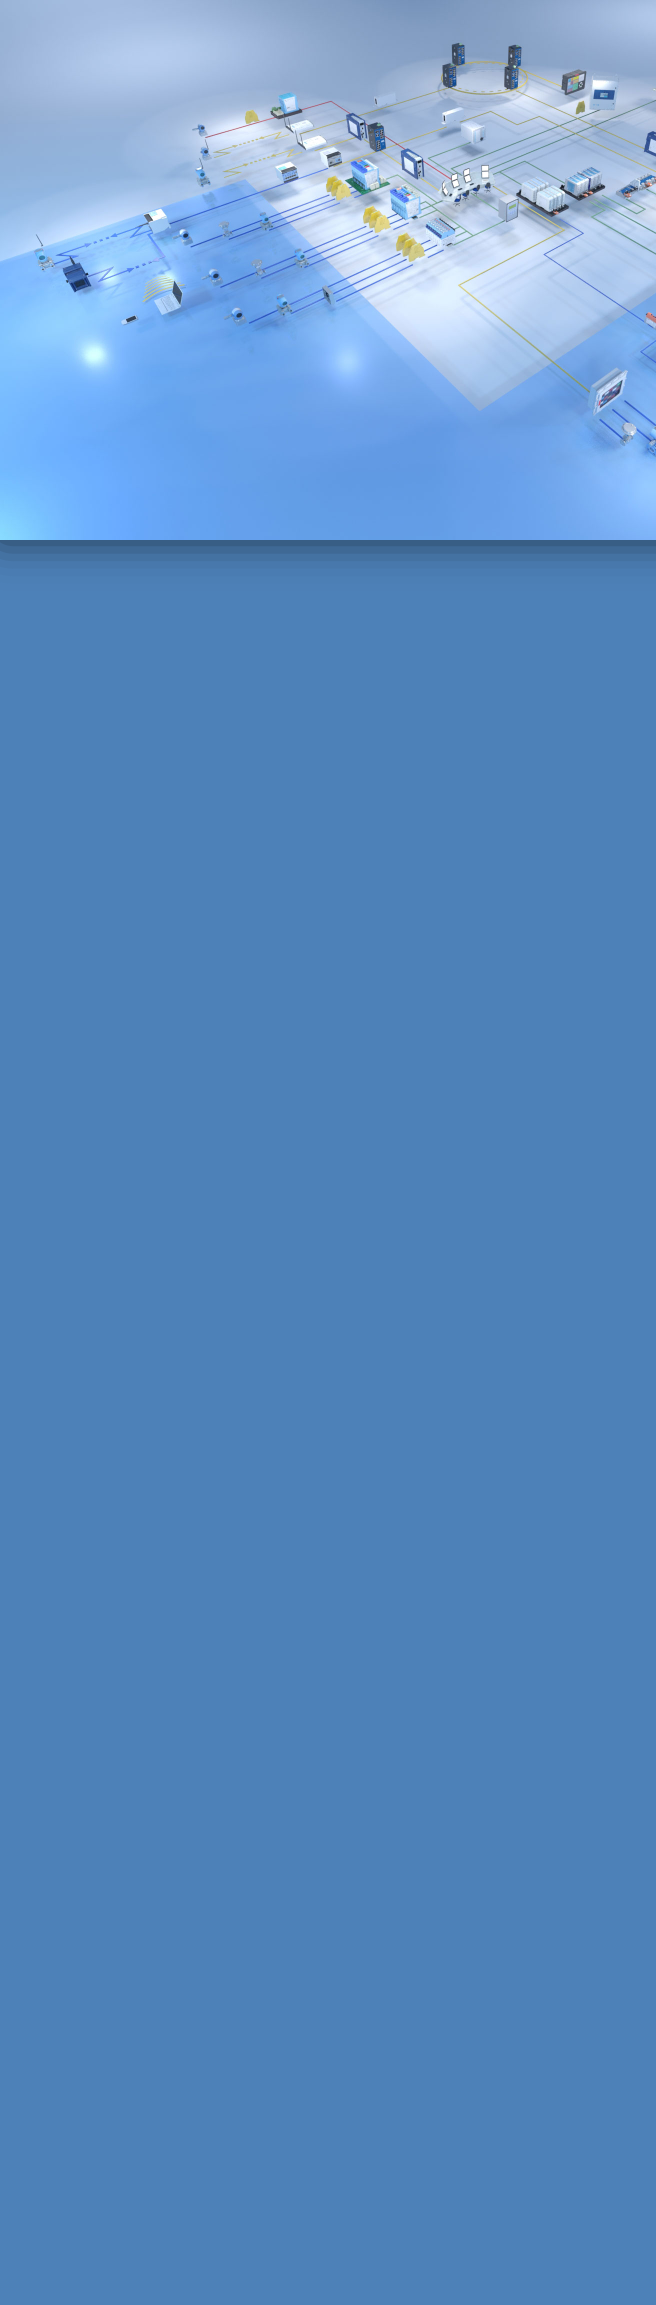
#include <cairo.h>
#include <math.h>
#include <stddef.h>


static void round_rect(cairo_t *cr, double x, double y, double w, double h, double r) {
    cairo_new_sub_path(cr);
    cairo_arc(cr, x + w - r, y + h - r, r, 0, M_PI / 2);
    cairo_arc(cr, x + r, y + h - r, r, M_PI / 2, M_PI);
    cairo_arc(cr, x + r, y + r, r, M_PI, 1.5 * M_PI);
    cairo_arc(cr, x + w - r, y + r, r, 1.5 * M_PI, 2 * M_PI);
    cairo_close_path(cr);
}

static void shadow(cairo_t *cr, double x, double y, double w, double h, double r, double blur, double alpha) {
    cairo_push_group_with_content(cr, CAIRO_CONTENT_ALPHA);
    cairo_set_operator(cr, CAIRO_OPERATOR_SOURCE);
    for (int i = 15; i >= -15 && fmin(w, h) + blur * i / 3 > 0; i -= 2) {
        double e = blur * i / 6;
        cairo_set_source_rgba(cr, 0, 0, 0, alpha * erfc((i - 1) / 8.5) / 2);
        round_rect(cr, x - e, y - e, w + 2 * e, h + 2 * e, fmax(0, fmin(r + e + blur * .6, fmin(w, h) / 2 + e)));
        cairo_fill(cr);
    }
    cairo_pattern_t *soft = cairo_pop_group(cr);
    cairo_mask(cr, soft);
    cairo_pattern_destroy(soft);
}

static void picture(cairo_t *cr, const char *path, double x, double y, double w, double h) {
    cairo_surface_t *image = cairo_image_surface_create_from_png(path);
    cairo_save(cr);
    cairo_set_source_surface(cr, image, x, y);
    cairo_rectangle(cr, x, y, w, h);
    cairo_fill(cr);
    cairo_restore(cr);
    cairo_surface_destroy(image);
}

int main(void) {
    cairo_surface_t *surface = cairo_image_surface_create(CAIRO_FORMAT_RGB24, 656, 2305);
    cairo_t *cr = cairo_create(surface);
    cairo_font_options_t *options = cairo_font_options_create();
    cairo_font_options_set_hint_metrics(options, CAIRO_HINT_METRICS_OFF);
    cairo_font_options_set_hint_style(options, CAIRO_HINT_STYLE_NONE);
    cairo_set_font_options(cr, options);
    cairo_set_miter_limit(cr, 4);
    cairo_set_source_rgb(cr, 0.302, 0.506, 0.722);
    cairo_paint(cr);
    cairo_set_source_rgb(cr, 0, 0, 0);
    shadow(cr, 0, 480, 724, 55, 0, 22.5, 0.75);
    picture(cr, "img1.png", 0, 0, 656, 540);
    cairo_surface_write_to_png(surface, "page.png");
    cairo_font_options_destroy(options);
    cairo_destroy(cr);
    cairo_surface_destroy(surface);
    return 0;
}
